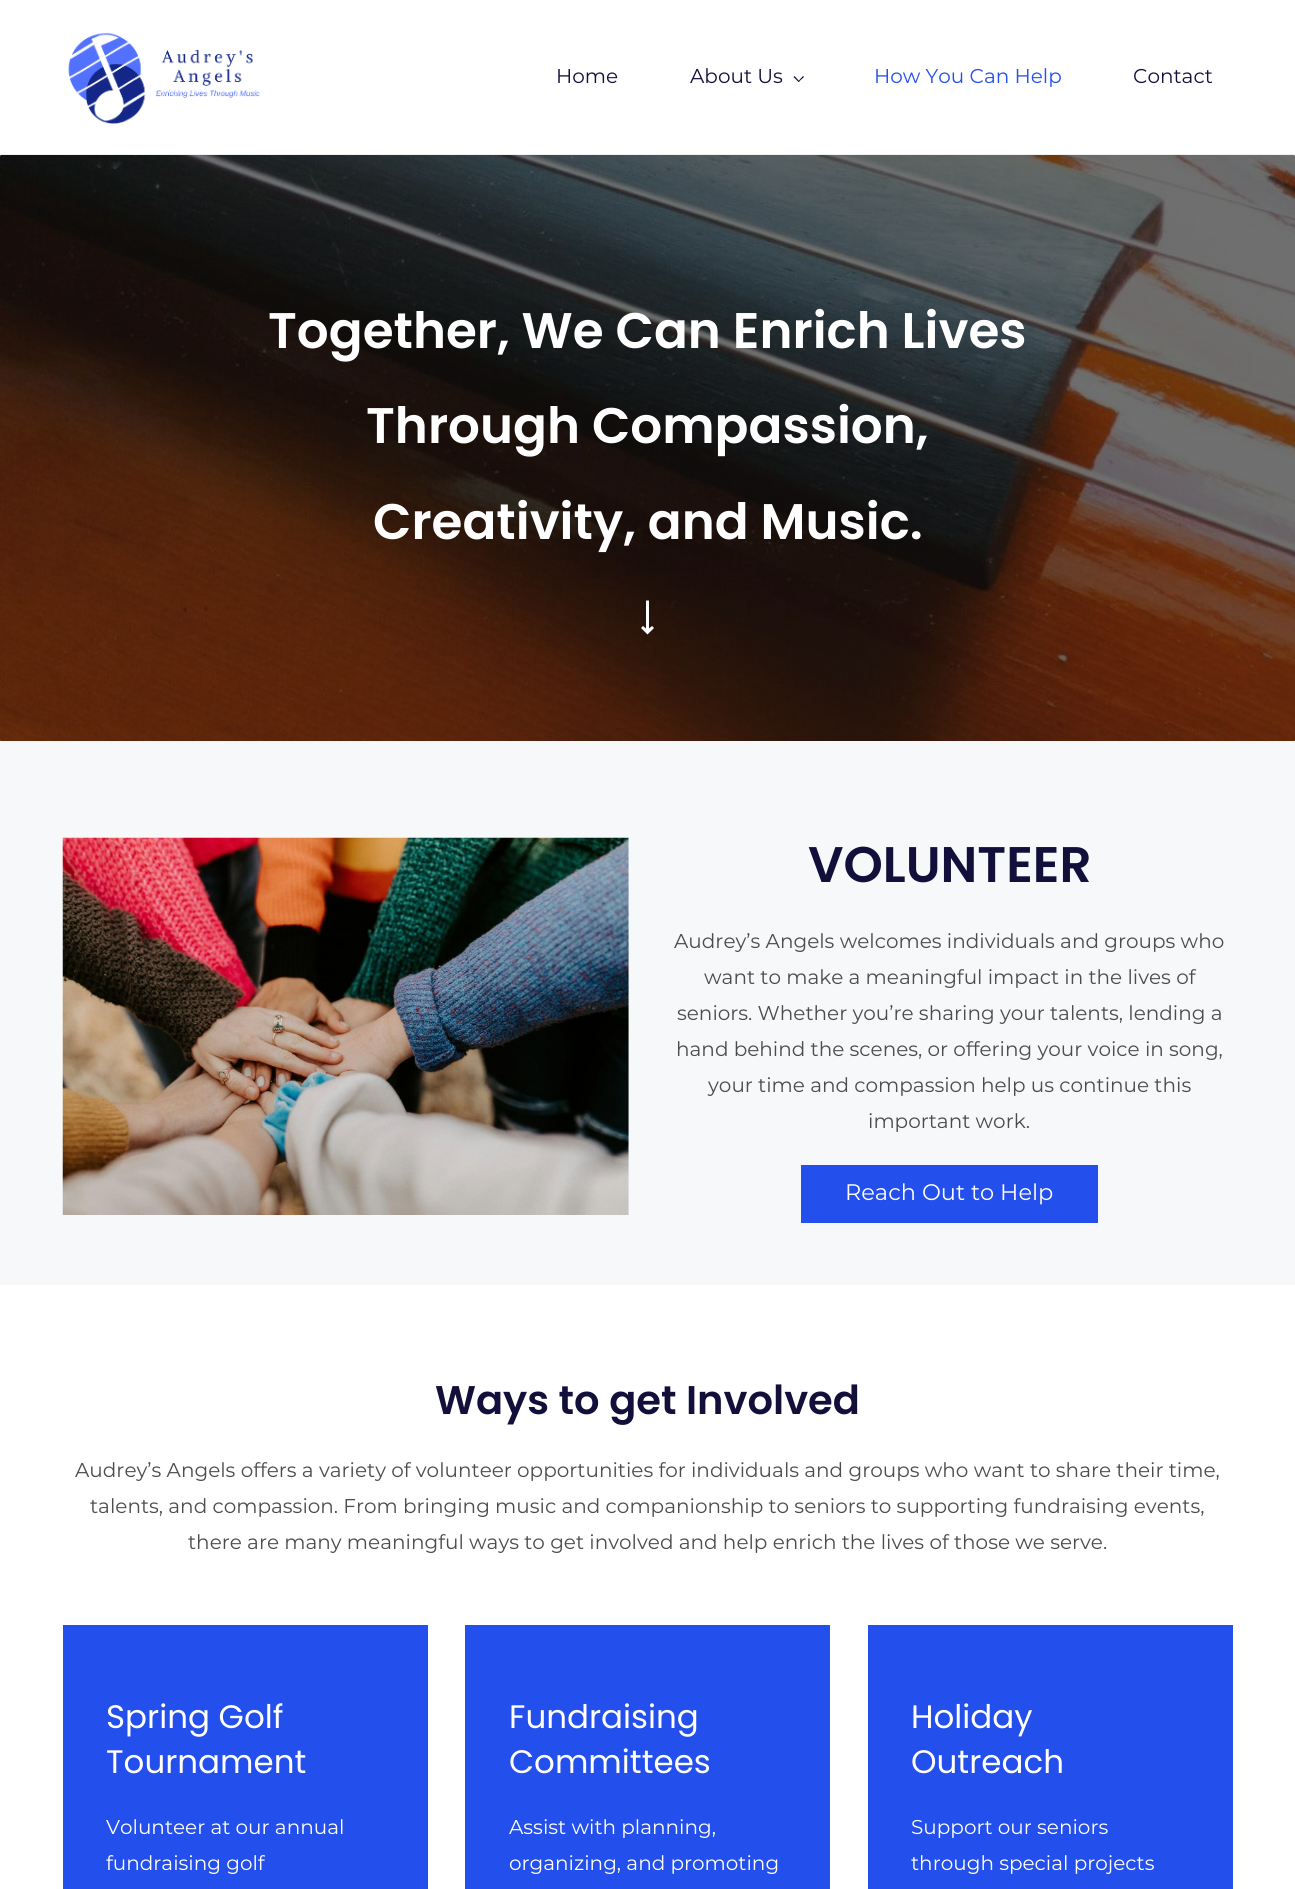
#include <cairo.h>
#include <math.h>
#include <stddef.h>


static void picture(cairo_t *cr, const char *path, double x, double y, double w, double h) {
    cairo_surface_t *image = cairo_image_surface_create_from_png(path);
    cairo_save(cr);
    cairo_set_source_surface(cr, image, x, y);
    cairo_rectangle(cr, x, y, w, h);
    cairo_fill(cr);
    cairo_restore(cr);
    cairo_surface_destroy(image);
}

int main(void) {
    cairo_surface_t *surface = cairo_image_surface_create(CAIRO_FORMAT_RGB24, 1295, 1889);
    cairo_t *cr = cairo_create(surface);
    cairo_font_options_t *options = cairo_font_options_create();
    cairo_font_options_set_hint_metrics(options, CAIRO_HINT_METRICS_OFF);
    cairo_font_options_set_hint_style(options, CAIRO_HINT_STYLE_NONE);
    cairo_set_font_options(cr, options);
    cairo_set_miter_limit(cr, 4);
    cairo_set_source_rgb(cr, 1, 1, 1);
    cairo_paint(cr);
    cairo_set_source_rgb(cr, 0.941, 0.941, 0.941);
    cairo_rectangle(cr, 0, 154, 1295, 1);
    cairo_fill(cr);
    picture(cr, "img1.png", 68, 32, 192, 92);
    cairo_select_font_face(cr, "Montserrat", CAIRO_FONT_SLANT_NORMAL, CAIRO_FONT_WEIGHT_NORMAL);
    cairo_set_font_size(cr, 20);
    cairo_set_source_rgb(cr, 0.078, 0.059, 0.231);
    cairo_move_to(cr, 556, 83);
    cairo_show_text(cr, "Home");
    cairo_move_to(cr, 690, 83);
    cairo_show_text(cr, "About Us");
    cairo_new_path(cr);
    cairo_move_to(cr, 804, 77);
    cairo_line_to(cr, 798.5, 82);
    cairo_line_to(cr, 798, 81.5);
    cairo_line_to(cr, 803, 76);
    cairo_close_path(cr);
    cairo_fill(cr);
    cairo_new_path(cr);
    cairo_move_to(cr, 799.5, 81.5);
    cairo_line_to(cr, 798.5, 82);
    cairo_line_to(cr, 793.5, 77);
    cairo_line_to(cr, 794.5, 76);
    cairo_close_path(cr);
    cairo_fill(cr);
    cairo_set_source_rgb(cr, 0.137, 0.31, 0.922);
    cairo_move_to(cr, 874, 83);
    cairo_show_text(cr, "How You Can Help");
    cairo_set_source_rgb(cr, 0.078, 0.059, 0.231);
    cairo_move_to(cr, 1133, 83);
    cairo_show_text(cr, "Contact");
    picture(cr, "img2.png", 0, 155, 1295, 586);
    cairo_select_font_face(cr, "Poppins SemiBold", CAIRO_FONT_SLANT_NORMAL, CAIRO_FONT_WEIGHT_NORMAL);
    cairo_set_font_size(cr, 50);
    cairo_set_source_rgb(cr, 1, 1, 1);
    cairo_move_to(cr, 268, 348);
    cairo_show_text(cr, "Together, We Can Enrich Lives");
    cairo_move_to(cr, 366, 443);
    cairo_show_text(cr, "Through Compassion,");
    cairo_move_to(cr, 373, 539);
    cairo_show_text(cr, "Creativity, and Music.");
    cairo_new_path(cr);
    cairo_move_to(cr, 649, 628.5);
    cairo_line_to(cr, 652, 626);
    cairo_line_to(cr, 654, 628);
    cairo_line_to(cr, 647.5, 634.5);
    cairo_line_to(cr, 641, 628);
    cairo_line_to(cr, 643, 626);
    cairo_line_to(cr, 646, 628.5);
    cairo_line_to(cr, 646, 600.5);
    cairo_line_to(cr, 649, 600.5);
    cairo_close_path(cr);
    cairo_fill(cr);
    cairo_set_source_rgb(cr, 0.961, 0.969, 0.98);
    cairo_rectangle(cr, 0, 741, 1295, 544);
    cairo_fill(cr);
    picture(cr, "img3.png", 62, 837, 567, 378);
    cairo_set_source_rgb(cr, 0.078, 0.059, 0.231);
    cairo_move_to(cr, 808, 882);
    cairo_show_text(cr, "VOLUNTEER");
    cairo_select_font_face(cr, "Montserrat", CAIRO_FONT_SLANT_NORMAL, CAIRO_FONT_WEIGHT_NORMAL);
    cairo_set_font_size(cr, 20);
    cairo_set_source_rgb(cr, 0.298, 0.298, 0.298);
    cairo_move_to(cr, 674, 948);
    cairo_show_text(cr, "Audrey’s Angels welcomes individuals and groups who");
    cairo_move_to(cr, 704, 984);
    cairo_show_text(cr, "want to make a meaningful impact in the lives of");
    cairo_move_to(cr, 677, 1020);
    cairo_show_text(cr, "seniors. Whether you’re sharing your talents, lending a");
    cairo_move_to(cr, 676, 1056);
    cairo_show_text(cr, "hand behind the scenes, or offering your voice in song,");
    cairo_move_to(cr, 708, 1092);
    cairo_show_text(cr, "your time and compassion help us continue this");
    cairo_move_to(cr, 868, 1128);
    cairo_show_text(cr, "important work.");
    cairo_set_source_rgb(cr, 0.137, 0.31, 0.922);
    cairo_rectangle(cr, 801, 1165, 297, 58);
    cairo_fill(cr);
    cairo_set_font_size(cr, 22.5);
    cairo_set_source_rgb(cr, 1, 1, 1);
    cairo_move_to(cr, 845, 1200);
    cairo_show_text(cr, "Reach Out to Help");
    cairo_select_font_face(cr, "Poppins SemiBold", CAIRO_FONT_SLANT_NORMAL, CAIRO_FONT_WEIGHT_NORMAL);
    cairo_set_font_size(cr, 40);
    cairo_set_source_rgb(cr, 0.078, 0.059, 0.231);
    cairo_move_to(cr, 435, 1414);
    cairo_show_text(cr, "Ways to get Involved");
    cairo_select_font_face(cr, "Montserrat", CAIRO_FONT_SLANT_NORMAL, CAIRO_FONT_WEIGHT_NORMAL);
    cairo_set_font_size(cr, 20);
    cairo_set_source_rgb(cr, 0.298, 0.298, 0.298);
    cairo_move_to(cr, 75, 1477);
    cairo_show_text(cr, "Audrey’s Angels offers a variety of volunteer opportunities for individuals and groups who want to share their time,");
    cairo_move_to(cr, 90, 1513);
    cairo_show_text(cr, "talents, and compassion. From bringing music and companionship to seniors to supporting fundraising events,");
    cairo_move_to(cr, 188, 1549);
    cairo_show_text(cr, "there are many meaningful ways to get involved and help enrich the lives of those we serve.");
    cairo_set_source_rgb(cr, 0.137, 0.31, 0.922);
    cairo_rectangle(cr, 63, 1625, 365, 264);
    cairo_fill(cr);
    cairo_select_font_face(cr, "Poppins", CAIRO_FONT_SLANT_NORMAL, CAIRO_FONT_WEIGHT_NORMAL);
    cairo_set_font_size(cr, 32.5);
    cairo_set_source_rgb(cr, 1, 1, 1);
    cairo_move_to(cr, 106, 1728);
    cairo_show_text(cr, "Spring Golf");
    cairo_move_to(cr, 106, 1773);
    cairo_show_text(cr, "Tournament");
    cairo_select_font_face(cr, "Montserrat", CAIRO_FONT_SLANT_NORMAL, CAIRO_FONT_WEIGHT_NORMAL);
    cairo_set_font_size(cr, 20);
    cairo_move_to(cr, 106, 1834);
    cairo_show_text(cr, "Volunteer at our annual");
    cairo_move_to(cr, 106, 1870);
    cairo_show_text(cr, "fundraising golf");
    cairo_set_source_rgb(cr, 0.137, 0.31, 0.922);
    cairo_rectangle(cr, 465, 1625, 365, 264);
    cairo_fill(cr);
    cairo_select_font_face(cr, "Poppins", CAIRO_FONT_SLANT_NORMAL, CAIRO_FONT_WEIGHT_NORMAL);
    cairo_set_font_size(cr, 32.5);
    cairo_set_source_rgb(cr, 1, 1, 1);
    cairo_move_to(cr, 509, 1728);
    cairo_show_text(cr, "Fundraising");
    cairo_move_to(cr, 509, 1773);
    cairo_show_text(cr, "Committees");
    cairo_select_font_face(cr, "Montserrat", CAIRO_FONT_SLANT_NORMAL, CAIRO_FONT_WEIGHT_NORMAL);
    cairo_set_font_size(cr, 20);
    cairo_move_to(cr, 509, 1834);
    cairo_show_text(cr, "Assist with planning,");
    cairo_move_to(cr, 509, 1870);
    cairo_show_text(cr, "organizing, and promoting");
    cairo_set_source_rgb(cr, 0.137, 0.31, 0.922);
    cairo_rectangle(cr, 868, 1625, 365, 264);
    cairo_fill(cr);
    cairo_select_font_face(cr, "Poppins", CAIRO_FONT_SLANT_NORMAL, CAIRO_FONT_WEIGHT_NORMAL);
    cairo_set_font_size(cr, 32.5);
    cairo_set_source_rgb(cr, 1, 1, 1);
    cairo_move_to(cr, 911, 1728);
    cairo_show_text(cr, "Holiday");
    cairo_move_to(cr, 911, 1773);
    cairo_show_text(cr, "Outreach");
    cairo_select_font_face(cr, "Montserrat", CAIRO_FONT_SLANT_NORMAL, CAIRO_FONT_WEIGHT_NORMAL);
    cairo_set_font_size(cr, 20);
    cairo_move_to(cr, 911, 1834);
    cairo_show_text(cr, "Support our seniors");
    cairo_move_to(cr, 911, 1870);
    cairo_show_text(cr, "through special projects");
    cairo_surface_write_to_png(surface, "page.png");
    cairo_font_options_destroy(options);
    cairo_destroy(cr);
    cairo_surface_destroy(surface);
    return 0;
}
